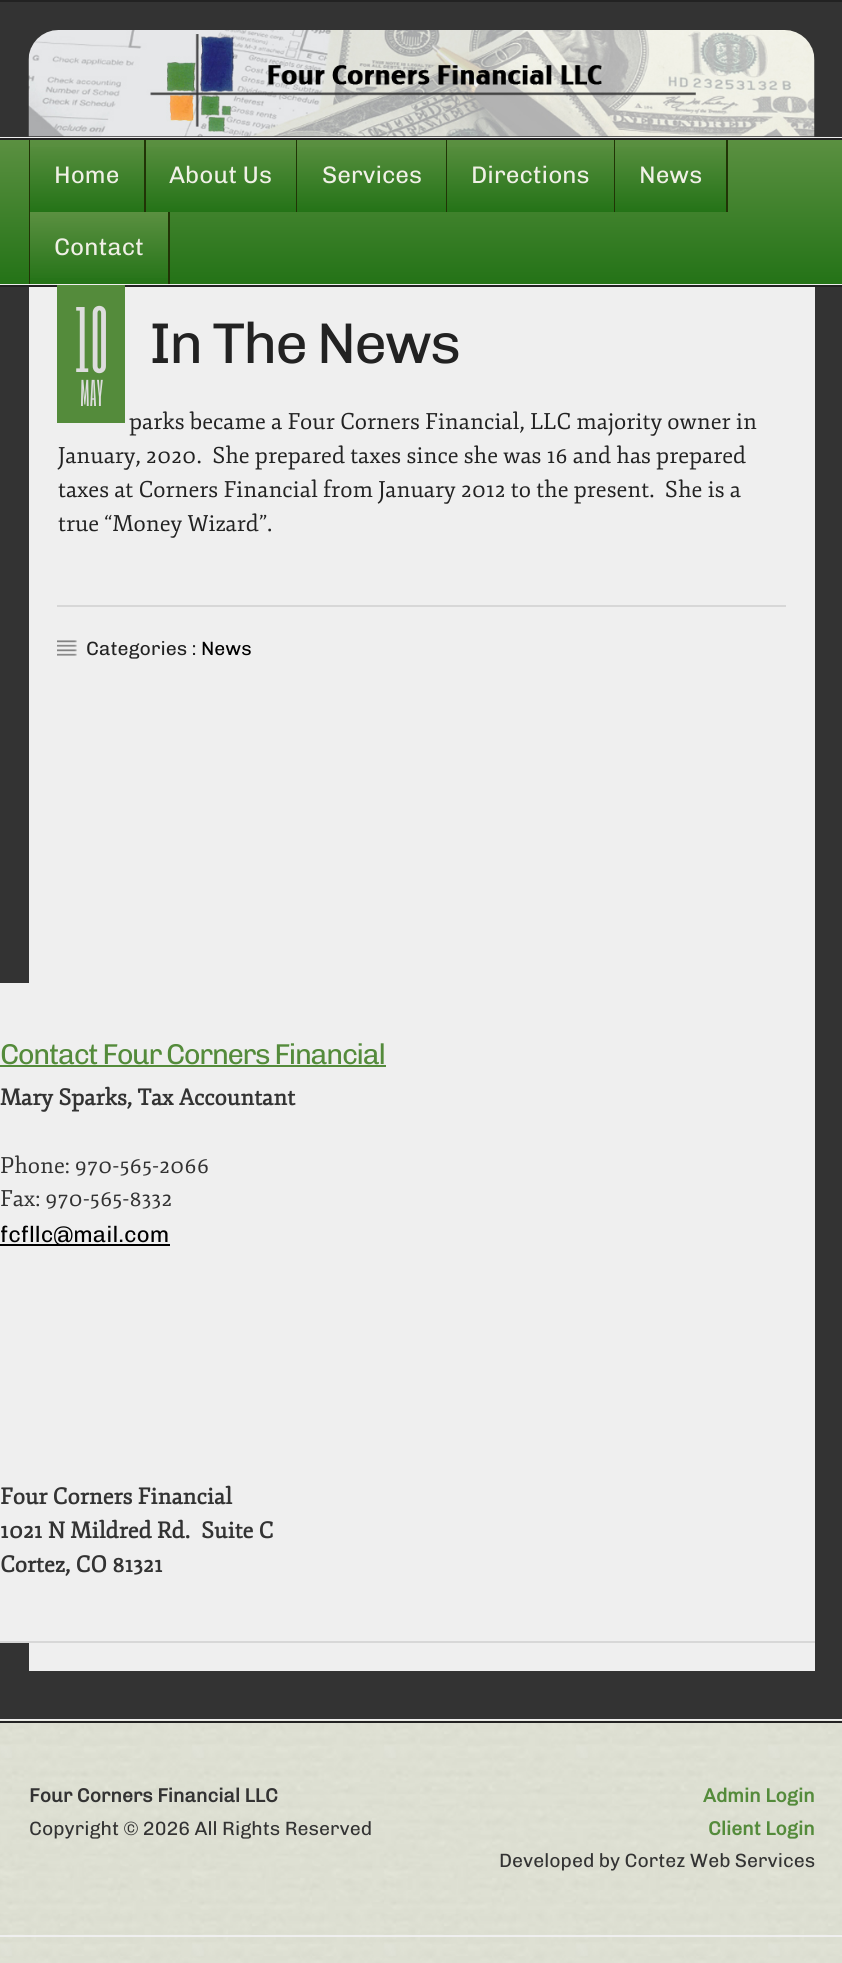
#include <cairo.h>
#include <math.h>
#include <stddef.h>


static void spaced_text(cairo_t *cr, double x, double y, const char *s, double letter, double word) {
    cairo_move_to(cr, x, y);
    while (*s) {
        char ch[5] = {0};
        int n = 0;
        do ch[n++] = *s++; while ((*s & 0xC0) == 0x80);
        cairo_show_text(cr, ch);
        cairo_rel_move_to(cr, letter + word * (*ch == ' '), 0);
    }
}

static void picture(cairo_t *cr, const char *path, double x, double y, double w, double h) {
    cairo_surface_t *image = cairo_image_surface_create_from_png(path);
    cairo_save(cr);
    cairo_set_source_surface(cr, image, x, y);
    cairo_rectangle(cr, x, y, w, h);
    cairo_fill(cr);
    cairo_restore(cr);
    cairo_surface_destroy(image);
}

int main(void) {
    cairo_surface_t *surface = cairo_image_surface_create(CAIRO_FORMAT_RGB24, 842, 1963);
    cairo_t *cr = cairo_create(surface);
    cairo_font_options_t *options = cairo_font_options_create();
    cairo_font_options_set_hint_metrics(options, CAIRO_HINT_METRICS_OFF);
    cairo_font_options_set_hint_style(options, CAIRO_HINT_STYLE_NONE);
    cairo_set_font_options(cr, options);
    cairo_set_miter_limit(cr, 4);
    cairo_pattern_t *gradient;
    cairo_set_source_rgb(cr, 1, 1, 1);
    cairo_paint(cr);
    picture(cr, "img1.png", 0, 1934, 842, 29);
    cairo_set_source_rgb(cr, 0.2, 0.2, 0.2);
    cairo_rectangle(cr, 0, 2, 842, 135);
    cairo_fill(cr);
    cairo_set_source_rgb(cr, 0.133, 0.133, 0.133);
    cairo_rectangle(cr, 0, 0, 842, 2);
    cairo_fill(cr);
    cairo_set_source_rgb(cr, 0.937, 0.937, 0.937);
    cairo_rectangle(cr, 0, 137, 842, 1);
    cairo_fill(cr);
    picture(cr, "img2.png", 28, 30, 787, 107);
    gradient = cairo_pattern_create_linear(422, 139, 422, 284);
    cairo_pattern_add_color_stop_rgba(gradient, 0, 0.357, 0.565, 0.255, 1);
    cairo_pattern_add_color_stop_rgba(gradient, 1, 0.141, 0.451, 0.09, 1);
    cairo_set_source(cr, gradient);
    cairo_pattern_destroy(gradient);
    cairo_rectangle(cr, 0, 140, 842, 144);
    cairo_fill(cr);
    cairo_set_source_rgb(cr, 0.133, 0.133, 0.133);
    cairo_rectangle(cr, 0, 138, 842, 2);
    cairo_fill(cr);
    cairo_set_source_rgb(cr, 0.937, 0.937, 0.937);
    cairo_rectangle(cr, 0, 284, 842, 1);
    cairo_fill(cr);
    cairo_set_source_rgb(cr, 0.129, 0.204, 0.027);
    cairo_rectangle(cr, 29, 140, 1, 144);
    cairo_fill(cr);
    gradient = cairo_pattern_create_linear(87, 140, 87, 212);
    cairo_pattern_add_color_stop_rgba(gradient, 0, 0.357, 0.565, 0.255, 1);
    cairo_pattern_add_color_stop_rgba(gradient, 1, 0.141, 0.451, 0.09, 1);
    cairo_set_source(cr, gradient);
    cairo_pattern_destroy(gradient);
    cairo_rectangle(cr, 30, 147, 114, 65);
    cairo_fill(cr);
    cairo_set_source_rgb(cr, 0.129, 0.204, 0.027);
    cairo_rectangle(cr, 144, 140, 2, 72);
    cairo_fill(cr);
    cairo_select_font_face(cr, "Chivo Medium", CAIRO_FONT_SLANT_NORMAL, CAIRO_FONT_WEIGHT_NORMAL);
    cairo_set_font_size(cr, 24);
    cairo_set_source_rgb(cr, 0.941, 0.941, 0.902);
    cairo_move_to(cr, 54, 183);
    cairo_show_text(cr, "Home");
    gradient = cairo_pattern_create_linear(221, 140, 221, 212);
    cairo_pattern_add_color_stop_rgba(gradient, 0, 0.357, 0.565, 0.255, 1);
    cairo_pattern_add_color_stop_rgba(gradient, 1, 0.141, 0.451, 0.09, 1);
    cairo_set_source(cr, gradient);
    cairo_pattern_destroy(gradient);
    cairo_rectangle(cr, 146, 147, 150, 65);
    cairo_fill(cr);
    cairo_set_source_rgb(cr, 0.129, 0.204, 0.027);
    cairo_rectangle(cr, 296, 140, 1, 72);
    cairo_fill(cr);
    cairo_set_source_rgb(cr, 0.941, 0.941, 0.902);
    cairo_move_to(cr, 169, 183);
    cairo_show_text(cr, "About Us");
    gradient = cairo_pattern_create_linear(371, 140, 371, 212);
    cairo_pattern_add_color_stop_rgba(gradient, 0, 0.357, 0.565, 0.255, 1);
    cairo_pattern_add_color_stop_rgba(gradient, 1, 0.141, 0.451, 0.09, 1);
    cairo_set_source(cr, gradient);
    cairo_pattern_destroy(gradient);
    cairo_rectangle(cr, 297, 147, 149, 65);
    cairo_fill(cr);
    cairo_set_source_rgb(cr, 0.129, 0.204, 0.027);
    cairo_rectangle(cr, 446, 140, 1, 72);
    cairo_fill(cr);
    cairo_set_source_rgb(cr, 0.941, 0.941, 0.902);
    cairo_move_to(cr, 322, 183);
    cairo_show_text(cr, "Services");
    gradient = cairo_pattern_create_linear(530, 140, 530, 212);
    cairo_pattern_add_color_stop_rgba(gradient, 0, 0.357, 0.565, 0.255, 1);
    cairo_pattern_add_color_stop_rgba(gradient, 1, 0.141, 0.451, 0.09, 1);
    cairo_set_source(cr, gradient);
    cairo_pattern_destroy(gradient);
    cairo_rectangle(cr, 447, 147, 167, 65);
    cairo_fill(cr);
    cairo_set_source_rgb(cr, 0.129, 0.204, 0.027);
    cairo_rectangle(cr, 614, 140, 1, 72);
    cairo_fill(cr);
    cairo_set_source_rgb(cr, 0.941, 0.941, 0.902);
    cairo_move_to(cr, 471, 183);
    cairo_show_text(cr, "Directions");
    gradient = cairo_pattern_create_linear(671, 140, 671, 212);
    cairo_pattern_add_color_stop_rgba(gradient, 0, 0.357, 0.565, 0.255, 1);
    cairo_pattern_add_color_stop_rgba(gradient, 1, 0.141, 0.451, 0.09, 1);
    cairo_set_source(cr, gradient);
    cairo_pattern_destroy(gradient);
    cairo_rectangle(cr, 615, 147, 111, 65);
    cairo_fill(cr);
    cairo_set_source_rgb(cr, 0.129, 0.204, 0.027);
    cairo_rectangle(cr, 726, 140, 2, 72);
    cairo_fill(cr);
    cairo_set_source_rgb(cr, 0.941, 0.941, 0.902);
    cairo_move_to(cr, 639, 183);
    cairo_show_text(cr, "News");
    gradient = cairo_pattern_create_linear(99, 212, 99, 284);
    cairo_pattern_add_color_stop_rgba(gradient, 0, 0.357, 0.565, 0.255, 1);
    cairo_pattern_add_color_stop_rgba(gradient, 1, 0.141, 0.451, 0.09, 1);
    cairo_set_source(cr, gradient);
    cairo_pattern_destroy(gradient);
    cairo_rectangle(cr, 30, 212, 138, 66);
    cairo_fill(cr);
    cairo_set_source_rgb(cr, 0.129, 0.204, 0.027);
    cairo_rectangle(cr, 168, 212, 2, 72);
    cairo_fill(cr);
    cairo_set_source_rgb(cr, 0.941, 0.941, 0.902);
    cairo_move_to(cr, 54, 255);
    cairo_show_text(cr, "Contact");
    cairo_set_source_rgb(cr, 0.2, 0.2, 0.2);
    cairo_rectangle(cr, 0, 287, 842, 1432);
    cairo_fill(cr);
    cairo_set_source_rgb(cr, 0.133, 0.133, 0.133);
    cairo_rectangle(cr, 0, 285, 842, 2);
    cairo_fill(cr);
    cairo_set_source_rgb(cr, 0.937, 0.937, 0.937);
    cairo_rectangle(cr, 0, 1719, 842, 2);
    cairo_fill(cr);
    cairo_rectangle(cr, 29, 287, 786, 1384);
    cairo_fill(cr);
    cairo_set_source_rgb(cr, 0.329, 0.545, 0.231);
    cairo_rectangle(cr, 57, 285, 68, 138);
    cairo_fill(cr);
    cairo_select_font_face(cr, "Six Caps", CAIRO_FONT_SLANT_NORMAL, CAIRO_FONT_WEIGHT_NORMAL);
    cairo_set_font_size(cr, 77);
    cairo_set_source_rgb(cr, 0.867, 0.867, 0.867);
    spaced_text(cr, 75, 372, "10", 2, 0);
    cairo_set_font_size(cr, 31);
    cairo_move_to(cr, 80, 406);
    cairo_show_text(cr, "MAY");
    cairo_select_font_face(cr, "Chivo Medium", CAIRO_FONT_SLANT_NORMAL, CAIRO_FONT_WEIGHT_NORMAL);
    cairo_set_font_size(cr, 57.5);
    cairo_set_source_rgb(cr, 0.133, 0.133, 0.133);
    spaced_text(cr, 149, 363, "In The News", -2.25, 0);
    cairo_select_font_face(cr, "Fjord", CAIRO_FONT_SLANT_NORMAL, CAIRO_FONT_WEIGHT_NORMAL);
    cairo_set_font_size(cr, 22.5);
    cairo_move_to(cr, 129, 429);
    cairo_show_text(cr, "parks became a Four Corners Financial, LLC majority owner in");
    cairo_move_to(cr, 58, 463);
    cairo_show_text(cr, "January, 2020.  She prepared taxes since she was 16 and has prepared");
    cairo_move_to(cr, 58, 497);
    cairo_show_text(cr, "taxes at Corners Financial from January 2012 to the present.  She is a");
    cairo_move_to(cr, 58, 531);
    cairo_show_text(cr, "true “Money Wizard”.");
    cairo_set_source_rgb(cr, 0.843, 0.843, 0.843);
    cairo_rectangle(cr, 57, 605, 729, 2);
    cairo_fill(cr);
    picture(cr, "img3.png", 57, 640, 20, 16);
    cairo_select_font_face(cr, "Chivo Medium", CAIRO_FONT_SLANT_NORMAL, CAIRO_FONT_WEIGHT_NORMAL);
    cairo_set_font_size(cr, 19.25);
    cairo_set_source_rgb(cr, 0.133, 0.133, 0.133);
    cairo_move_to(cr, 86, 655);
    cairo_show_text(cr, "Categories :");
    cairo_set_source_rgb(cr, 0, 0, 0);
    cairo_move_to(cr, 201, 655);
    cairo_show_text(cr, "News");
    cairo_set_source_rgb(cr, 0.937, 0.937, 0.937);
    cairo_rectangle(cr, 0, 983, 29, 658);
    cairo_fill(cr);
    cairo_set_source_rgb(cr, 0.843, 0.843, 0.843);
    cairo_rectangle(cr, 0, 1641, 815, 2);
    cairo_fill(cr);
    cairo_set_font_size(cr, 28.75);
    cairo_set_source_rgb(cr, 0.329, 0.545, 0.231);
    spaced_text(cr, 0, 1064, "Contact Four Corners Financial", -1.5, 0);
    cairo_rectangle(cr, 0, 1065, 386, 2);
    cairo_fill(cr);
    cairo_select_font_face(cr, "Fjord", CAIRO_FONT_SLANT_NORMAL, CAIRO_FONT_WEIGHT_BOLD);
    cairo_set_font_size(cr, 22.5);
    cairo_set_source_rgb(cr, 0.2, 0.2, 0.2);
    cairo_move_to(cr, 0, 1105);
    cairo_show_text(cr, "Mary Sparks, Tax Accountant");
    cairo_select_font_face(cr, "Fjord", CAIRO_FONT_SLANT_NORMAL, CAIRO_FONT_WEIGHT_NORMAL);
    cairo_move_to(cr, 0, 1173);
    cairo_show_text(cr, "Phone: 970-565-2066");
    cairo_move_to(cr, 0, 1206);
    cairo_show_text(cr, "Fax: 970-565-8332");
    cairo_set_source_rgb(cr, 0, 0, 0);
    cairo_rectangle(cr, 0, 1244, 170, 2);
    cairo_fill(cr);
    cairo_select_font_face(cr, "Chivo Medium", CAIRO_FONT_SLANT_NORMAL, CAIRO_FONT_WEIGHT_NORMAL);
    cairo_move_to(cr, 0, 1242);
    cairo_show_text(cr, "fcfllc@mail.com");
    cairo_select_font_face(cr, "Fjord", CAIRO_FONT_SLANT_NORMAL, CAIRO_FONT_WEIGHT_BOLD);
    cairo_set_source_rgb(cr, 0.2, 0.2, 0.2);
    cairo_move_to(cr, 0, 1504);
    cairo_show_text(cr, "Four Corners Financial");
    cairo_move_to(cr, 0, 1538);
    cairo_show_text(cr, "1021 N Mildred Rd.");
    cairo_move_to(cr, 201, 1538);
    cairo_show_text(cr, "Suite C");
    cairo_move_to(cr, 0, 1572);
    cairo_show_text(cr, "Cortez, CO 81321");
    picture(cr, "img4.png", 0, 1720, 842, 214);
    cairo_set_source_rgb(cr, 0.133, 0.133, 0.133);
    cairo_rectangle(cr, 0, 1721, 842, 2);
    cairo_fill(cr);
    cairo_set_source_rgb(cr, 0.937, 0.937, 0.937);
    cairo_rectangle(cr, 0, 1935, 842, 2);
    cairo_fill(cr);
    cairo_select_font_face(cr, "Chivo", CAIRO_FONT_SLANT_NORMAL, CAIRO_FONT_WEIGHT_BOLD);
    cairo_set_font_size(cr, 19.25);
    cairo_set_source_rgb(cr, 0.2, 0.2, 0.2);
    cairo_move_to(cr, 29, 1802);
    cairo_show_text(cr, "Four Corners Financial LLC");
    cairo_select_font_face(cr, "Chivo Medium", CAIRO_FONT_SLANT_NORMAL, CAIRO_FONT_WEIGHT_NORMAL);
    cairo_move_to(cr, 29, 1835);
    cairo_show_text(cr, "Copyright © 2026 All Rights Reserved");
    cairo_select_font_face(cr, "Chivo", CAIRO_FONT_SLANT_NORMAL, CAIRO_FONT_WEIGHT_BOLD);
    cairo_set_source_rgb(cr, 0.329, 0.545, 0.231);
    cairo_move_to(cr, 703, 1802);
    cairo_show_text(cr, "Admin Login");
    cairo_move_to(cr, 708, 1835);
    cairo_show_text(cr, "Client Login");
    cairo_select_font_face(cr, "Chivo Medium", CAIRO_FONT_SLANT_NORMAL, CAIRO_FONT_WEIGHT_NORMAL);
    cairo_set_source_rgb(cr, 0.2, 0.2, 0.2);
    cairo_move_to(cr, 499, 1867);
    cairo_show_text(cr, "Developed by Cortez Web Services");
    cairo_surface_write_to_png(surface, "page.png");
    cairo_font_options_destroy(options);
    cairo_destroy(cr);
    cairo_surface_destroy(surface);
    return 0;
}
